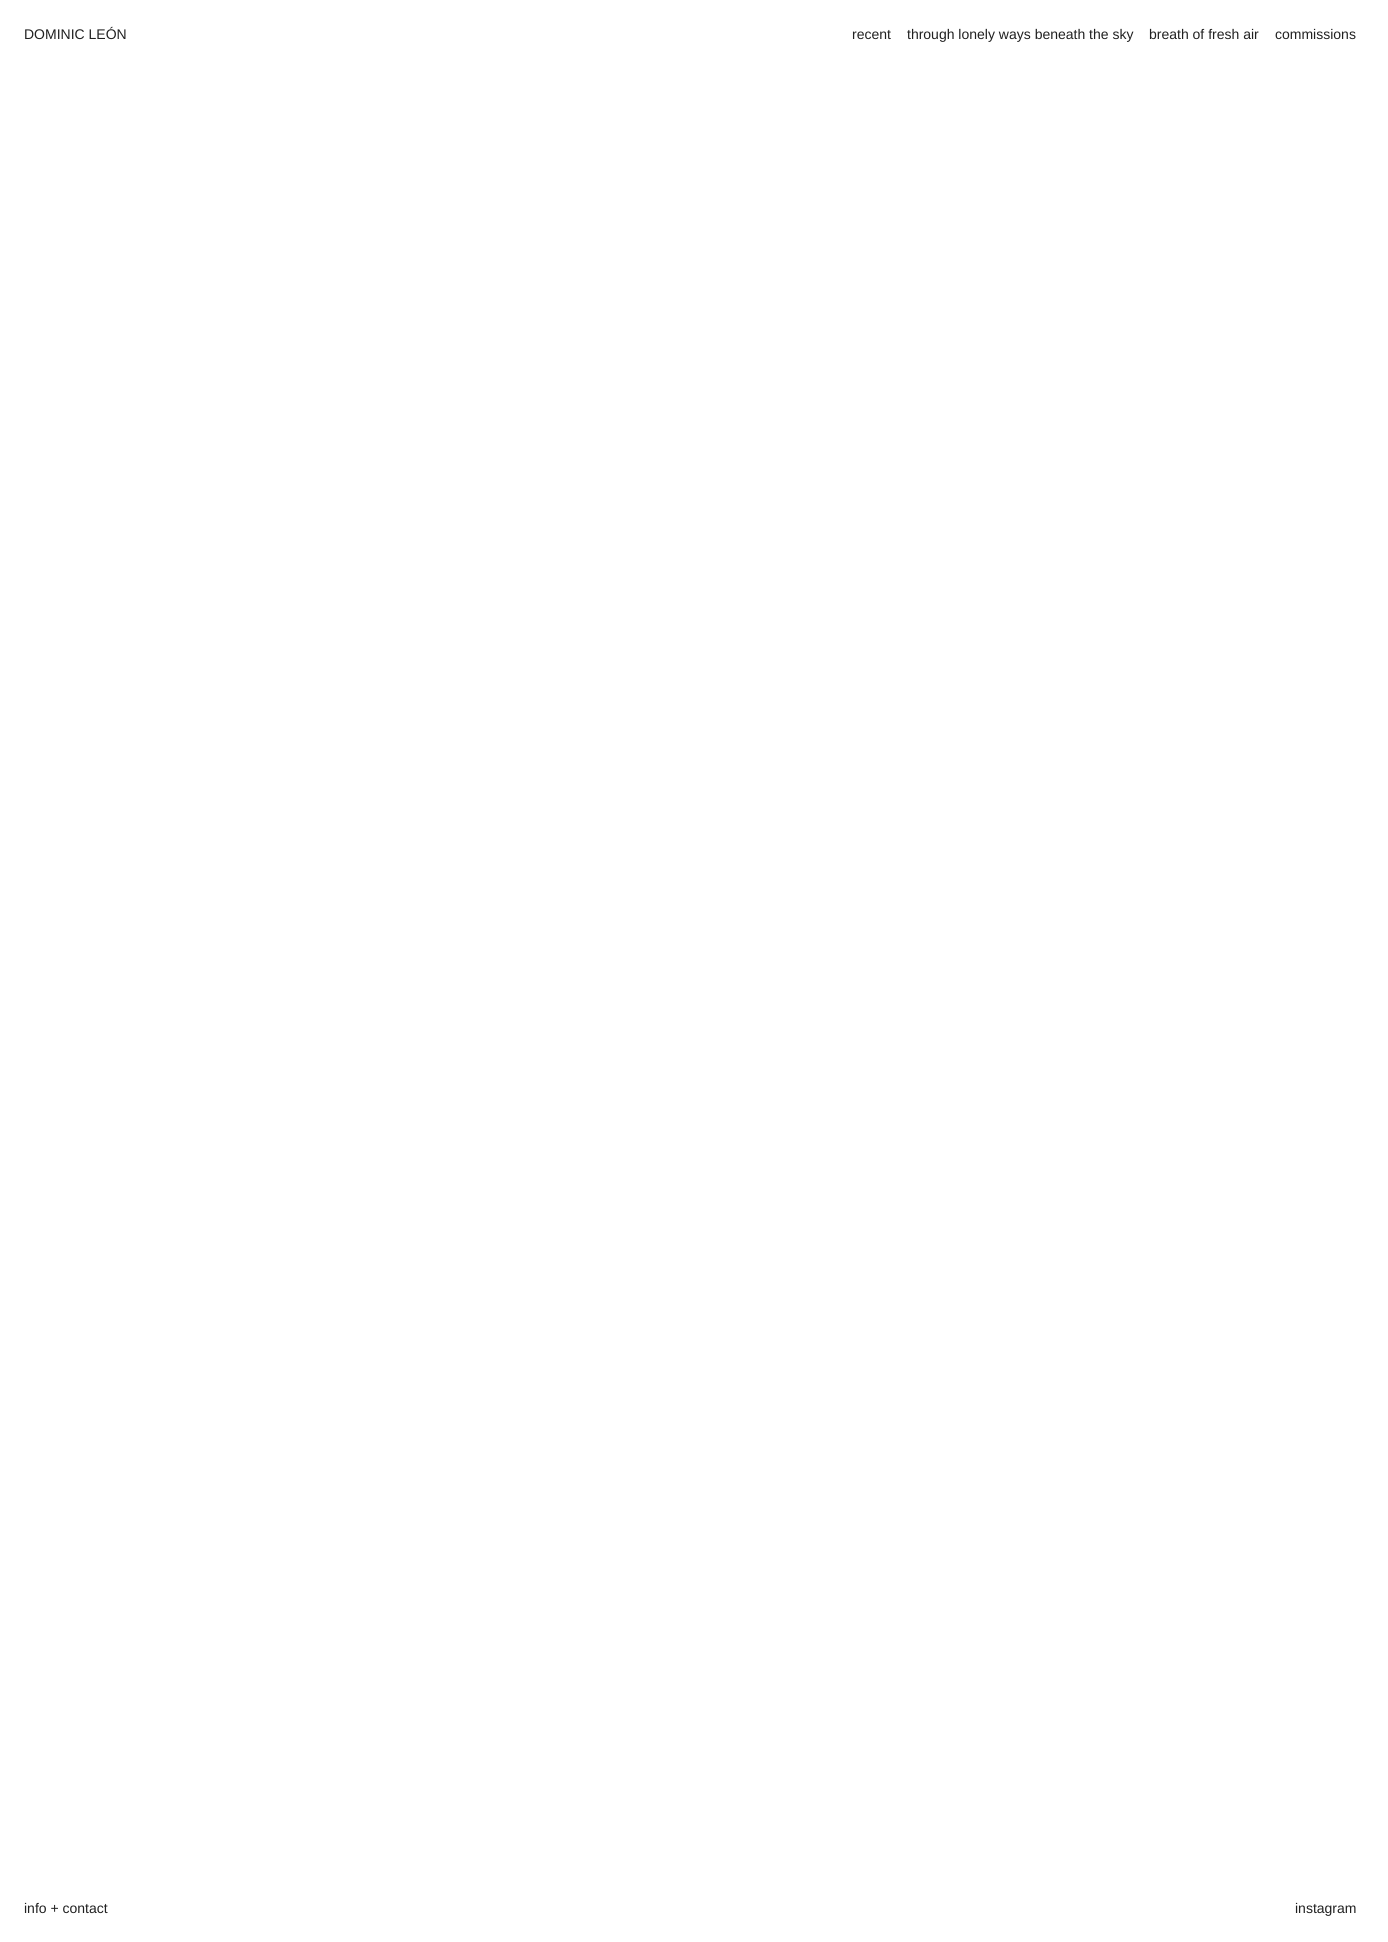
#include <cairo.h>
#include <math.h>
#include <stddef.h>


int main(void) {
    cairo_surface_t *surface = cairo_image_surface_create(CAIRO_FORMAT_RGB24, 1388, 1942);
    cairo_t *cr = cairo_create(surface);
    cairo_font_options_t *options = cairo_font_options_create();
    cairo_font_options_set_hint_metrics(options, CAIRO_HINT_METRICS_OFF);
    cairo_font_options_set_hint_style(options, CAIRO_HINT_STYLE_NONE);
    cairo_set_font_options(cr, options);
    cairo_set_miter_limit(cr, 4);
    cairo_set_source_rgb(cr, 1, 1, 1);
    cairo_paint(cr);
    cairo_select_font_face(cr, "Liberation Sans", CAIRO_FONT_SLANT_NORMAL, CAIRO_FONT_WEIGHT_NORMAL);
    cairo_set_font_size(cr, 14);
    cairo_set_source_rgb(cr, 0.129, 0.129, 0.129);
    cairo_move_to(cr, 24, 39);
    cairo_show_text(cr, "DOMINIC LEÓN");
    cairo_move_to(cr, 852, 39);
    cairo_show_text(cr, "recent");
    cairo_move_to(cr, 907, 39);
    cairo_show_text(cr, "through lonely ways beneath the sky");
    cairo_move_to(cr, 1149, 39);
    cairo_show_text(cr, "breath of fresh air");
    cairo_move_to(cr, 1275, 39);
    cairo_show_text(cr, "commissions");
    cairo_move_to(cr, 24, 1913);
    cairo_show_text(cr, "info + contact");
    cairo_move_to(cr, 1295, 1913);
    cairo_show_text(cr, "instagram");
    cairo_surface_write_to_png(surface, "page.png");
    cairo_font_options_destroy(options);
    cairo_destroy(cr);
    cairo_surface_destroy(surface);
    return 0;
}
